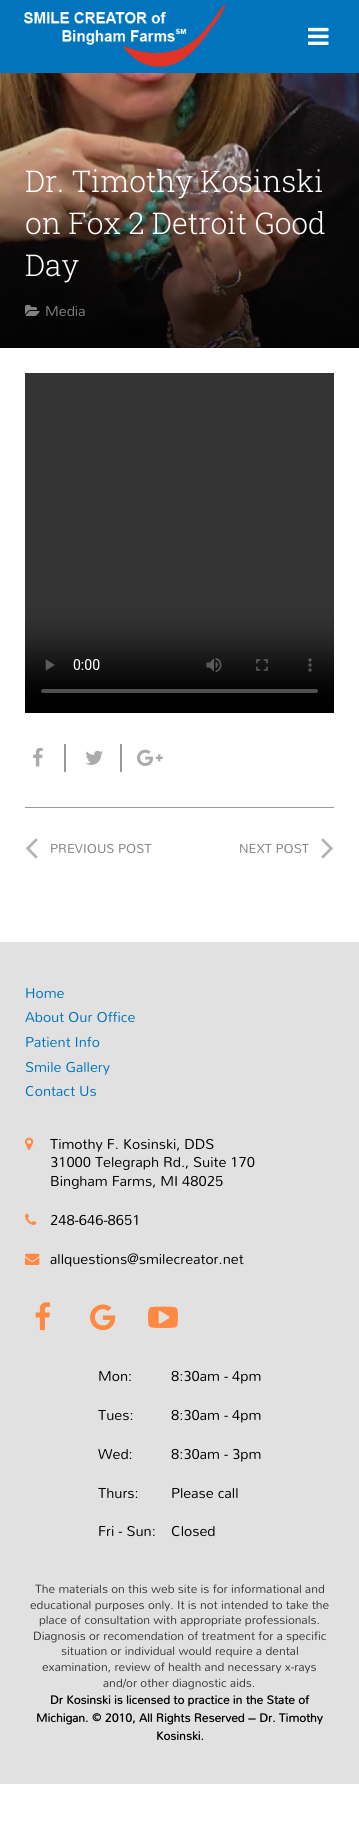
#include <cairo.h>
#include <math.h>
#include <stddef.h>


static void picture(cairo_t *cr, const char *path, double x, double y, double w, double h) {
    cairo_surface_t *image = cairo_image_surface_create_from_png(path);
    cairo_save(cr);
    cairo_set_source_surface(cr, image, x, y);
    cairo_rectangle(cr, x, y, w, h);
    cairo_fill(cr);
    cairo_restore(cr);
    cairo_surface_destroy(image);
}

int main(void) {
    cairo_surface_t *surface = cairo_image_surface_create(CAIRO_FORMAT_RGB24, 359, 1823);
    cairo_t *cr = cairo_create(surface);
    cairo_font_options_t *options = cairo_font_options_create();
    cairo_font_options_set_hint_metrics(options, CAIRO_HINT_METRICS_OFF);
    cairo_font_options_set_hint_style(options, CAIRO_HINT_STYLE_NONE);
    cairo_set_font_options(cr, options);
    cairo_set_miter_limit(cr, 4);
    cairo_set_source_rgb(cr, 1, 1, 1);
    cairo_paint(cr);
    cairo_set_source_rgb(cr, 0, 0.459, 0.745);
    cairo_rectangle(cr, 0, 0, 359, 73);
    cairo_fill(cr);
    picture(cr, "img1.png", 24, 3, 202, 65);
    picture(cr, "img2.png", 308, 27, 21, 18);
    picture(cr, "img3.png", 0, 73, 359, 275);
    cairo_select_font_face(cr, "Roboto Slab Light", CAIRO_FONT_SLANT_NORMAL, CAIRO_FONT_WEIGHT_NORMAL);
    cairo_set_font_size(cr, 30);
    cairo_set_source_rgb(cr, 1, 1, 1);
    cairo_move_to(cr, 25, 192);
    cairo_show_text(cr, "Dr. Timothy Kosinski");
    cairo_move_to(cr, 25, 234);
    cairo_show_text(cr, "on Fox 2 Detroit Good");
    cairo_move_to(cr, 25, 276);
    cairo_show_text(cr, "Day");
    picture(cr, "img4.png", 25, 305, 15, 11);
    cairo_select_font_face(cr, "Mandali", CAIRO_FONT_SLANT_NORMAL, CAIRO_FONT_WEIGHT_NORMAL);
    cairo_set_font_size(cr, 14.4);
    cairo_set_source_rgb(cr, 0.51, 0.51, 0.51);
    cairo_move_to(cr, 45, 316);
    cairo_show_text(cr, "Media");
    picture(cr, "img5.png", 25, 373, 309, 340);
    cairo_set_source_rgb(cr, 0.6, 0.6, 0.6);
    cairo_rectangle(cr, 64, 744, 2, 28);
    cairo_fill(cr);
    picture(cr, "img6.png", 33, 747, 10, 20);
    cairo_rectangle(cr, 120, 744, 2, 28);
    cairo_fill(cr);
    picture(cr, "img7.png", 86, 750, 17, 15);
    picture(cr, "img8.png", 137, 749, 26, 17);
    cairo_rectangle(cr, 25, 807, 309, 1);
    cairo_fill(cr);
    picture(cr, "img9.png", 26, 838, 12, 21);
    cairo_set_font_size(cr, 13);
    cairo_set_source_rgb(cr, 0.51, 0.51, 0.51);
    cairo_move_to(cr, 50, 853);
    cairo_show_text(cr, "PREVIOUS POST");
    cairo_move_to(cr, 239, 853);
    cairo_show_text(cr, "NEXT POST");
    picture(cr, "img10.png", 321, 838, 12, 21);
    cairo_set_source_rgb(cr, 0.882, 0.882, 0.882);
    cairo_rectangle(cr, 0, 942, 359, 842);
    cairo_fill(cr);
    cairo_set_font_size(cr, 14.4);
    cairo_set_source_rgb(cr, 0, 0.459, 0.745);
    cairo_move_to(cr, 25, 998);
    cairo_show_text(cr, "Home");
    cairo_move_to(cr, 25, 1022);
    cairo_show_text(cr, "About Our Office");
    cairo_move_to(cr, 25, 1047);
    cairo_show_text(cr, "Patient Info");
    cairo_move_to(cr, 25, 1072);
    cairo_show_text(cr, "Smile Gallery");
    cairo_move_to(cr, 25, 1096);
    cairo_show_text(cr, "Contact Us");
    picture(cr, "img11.png", 25, 1137, 9, 13);
    cairo_set_source_rgb(cr, 0, 0, 0);
    cairo_move_to(cr, 50, 1149);
    cairo_show_text(cr, "Timothy F. Kosinski, DDS");
    cairo_move_to(cr, 50, 1167);
    cairo_show_text(cr, "31000 Telegraph Rd., Suite 170");
    cairo_move_to(cr, 50, 1186);
    cairo_show_text(cr, "Bingham Farms, MI 48025");
    picture(cr, "img12.png", 25, 1213, 12, 12);
    cairo_move_to(cr, 50, 1225);
    cairo_show_text(cr, "248-646-8651");
    picture(cr, "img13.png", 25, 1253, 15, 12);
    cairo_move_to(cr, 50, 1264);
    cairo_show_text(cr, "allquestions@smilecreator.net");
    picture(cr, "img14.png", 35, 1302, 16, 29);
    picture(cr, "img15.png", 90, 1304, 26, 27);
    picture(cr, "img16.png", 148, 1306, 30, 22);
    cairo_move_to(cr, 98, 1381);
    cairo_show_text(cr, "Mon:");
    cairo_move_to(cr, 98, 1420);
    cairo_show_text(cr, "Tues:");
    cairo_move_to(cr, 98, 1459);
    cairo_show_text(cr, "Wed:");
    cairo_move_to(cr, 98, 1498);
    cairo_show_text(cr, "Thurs:");
    cairo_move_to(cr, 98, 1536);
    cairo_show_text(cr, "Fri - Sun:");
    cairo_move_to(cr, 171, 1381);
    cairo_show_text(cr, "8:30am - 4pm");
    cairo_move_to(cr, 171, 1420);
    cairo_show_text(cr, "8:30am - 4pm");
    cairo_move_to(cr, 171, 1459);
    cairo_show_text(cr, "8:30am - 3pm");
    cairo_move_to(cr, 171, 1498);
    cairo_show_text(cr, "Please call");
    cairo_move_to(cr, 171, 1536);
    cairo_show_text(cr, "Closed");
    cairo_set_font_size(cr, 12);
    cairo_set_source_rgb(cr, 0.22, 0.22, 0.22);
    cairo_move_to(cr, 35, 1593);
    cairo_show_text(cr, "The materials on this web site is for informational and");
    cairo_move_to(cr, 30, 1609);
    cairo_show_text(cr, "educational purposes only. It is not intended to take the");
    cairo_move_to(cr, 39, 1624);
    cairo_show_text(cr, "place of consultation with appropriate professionals.");
    cairo_move_to(cr, 33, 1640);
    cairo_show_text(cr, "Diagnosis or recomendation of treatment for a specific");
    cairo_move_to(cr, 61, 1655);
    cairo_show_text(cr, "situation or individual would require a dental");
    cairo_move_to(cr, 42, 1671);
    cairo_show_text(cr, "examination, review of health and necessary x-rays");
    cairo_move_to(cr, 103, 1687);
    cairo_show_text(cr, "and/or other diagnostic aids.");
    cairo_select_font_face(cr, "Mandali", CAIRO_FONT_SLANT_NORMAL, CAIRO_FONT_WEIGHT_BOLD);
    cairo_set_source_rgb(cr, 0, 0, 0);
    cairo_move_to(cr, 50, 1704);
    cairo_show_text(cr, "Dr Kosinski is licensed to practice in the State of");
    cairo_move_to(cr, 36, 1722);
    cairo_show_text(cr, "Michigan. © 2010, All Rights Reserved – Dr. Timothy");
    cairo_move_to(cr, 156, 1740);
    cairo_show_text(cr, "Kosinski.");
    cairo_surface_write_to_png(surface, "page.png");
    cairo_font_options_destroy(options);
    cairo_destroy(cr);
    cairo_surface_destroy(surface);
    return 0;
}
